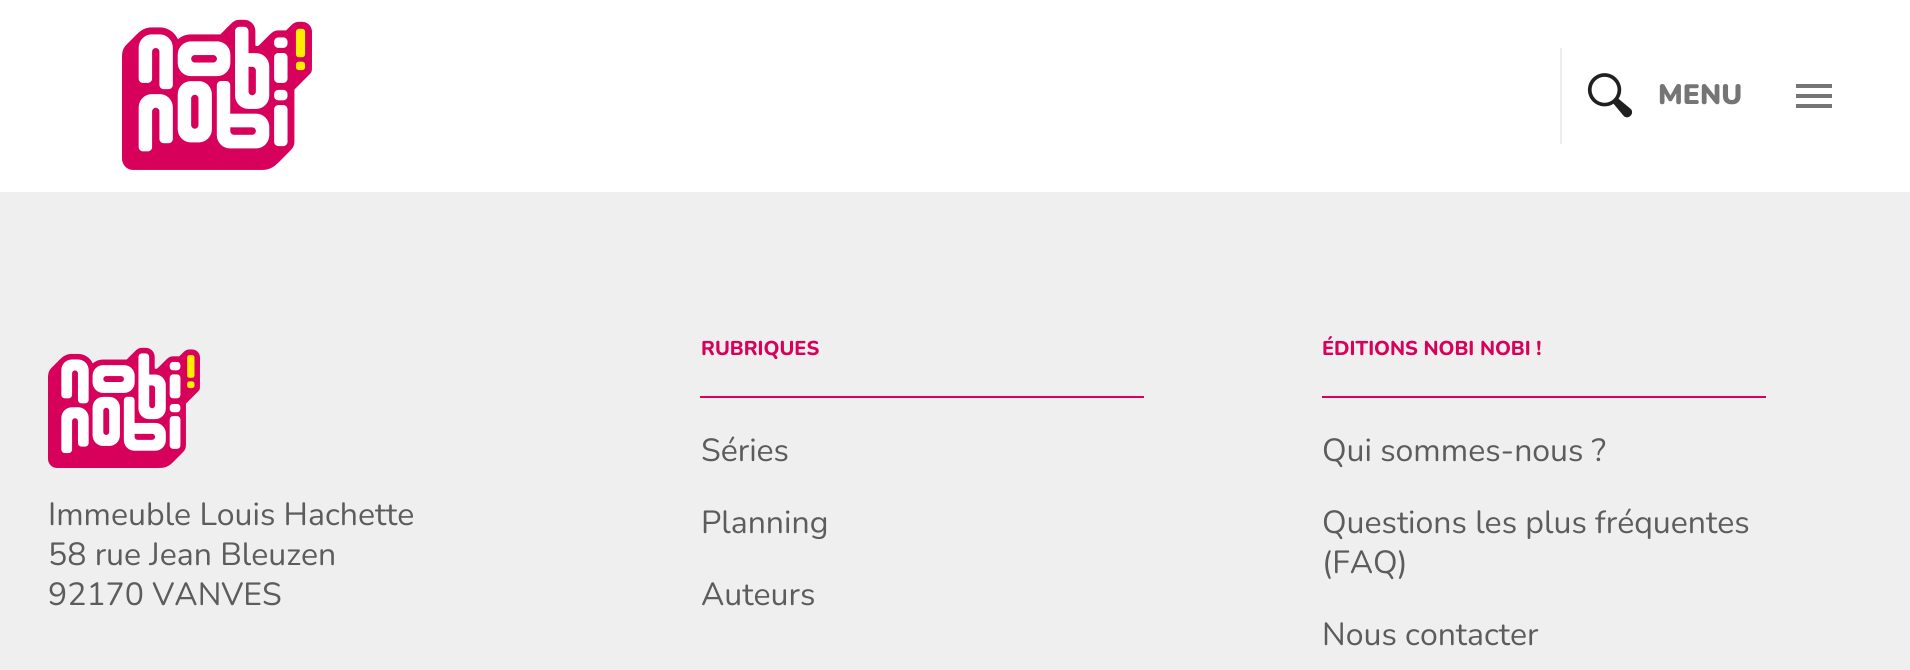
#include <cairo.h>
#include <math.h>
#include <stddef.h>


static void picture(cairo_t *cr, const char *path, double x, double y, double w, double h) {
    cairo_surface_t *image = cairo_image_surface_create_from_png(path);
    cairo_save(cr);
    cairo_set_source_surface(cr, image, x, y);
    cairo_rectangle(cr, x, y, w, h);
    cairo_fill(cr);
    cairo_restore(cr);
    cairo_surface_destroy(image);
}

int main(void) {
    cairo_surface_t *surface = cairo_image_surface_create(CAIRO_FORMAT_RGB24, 1910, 670);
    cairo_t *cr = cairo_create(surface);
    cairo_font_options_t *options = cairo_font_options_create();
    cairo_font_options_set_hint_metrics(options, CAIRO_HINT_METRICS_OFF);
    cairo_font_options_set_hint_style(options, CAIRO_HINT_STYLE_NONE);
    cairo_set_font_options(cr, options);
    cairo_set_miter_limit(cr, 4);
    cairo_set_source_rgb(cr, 0.937, 0.937, 0.937);
    cairo_paint(cr);
    cairo_set_source_rgb(cr, 1, 1, 1);
    cairo_rectangle(cr, 0, 0, 1910, 192);
    cairo_fill(cr);
    picture(cr, "img1.png", 122, 19, 190, 151);
    cairo_set_source_rgb(cr, 0.922, 0.922, 0.922);
    cairo_rectangle(cr, 1560, 48, 2, 96);
    cairo_fill(cr);
    picture(cr, "img2.png", 1587, 73, 46, 45);
    cairo_select_font_face(cr, "Nunito Black", CAIRO_FONT_SLANT_NORMAL, CAIRO_FONT_WEIGHT_NORMAL);
    cairo_set_font_size(cr, 28);
    cairo_set_source_rgb(cr, 0.459, 0.459, 0.459);
    cairo_move_to(cr, 1658, 104);
    cairo_show_text(cr, "MENU");
    cairo_new_path(cr);
    cairo_move_to(cr, 1796, 84);
    cairo_line_to(cr, 1832, 84);
    cairo_line_to(cr, 1832, 88);
    cairo_line_to(cr, 1796, 88);
    cairo_close_path(cr);
    cairo_move_to(cr, 1796, 98);
    cairo_line_to(cr, 1796, 94);
    cairo_line_to(cr, 1832, 94);
    cairo_line_to(cr, 1832, 98);
    cairo_close_path(cr);
    cairo_move_to(cr, 1796, 108);
    cairo_line_to(cr, 1796, 104);
    cairo_line_to(cr, 1832, 104);
    cairo_line_to(cr, 1832, 108);
    cairo_close_path(cr);
    cairo_fill(cr);
    picture(cr, "img3.png", 48, 347, 152, 121);
    cairo_select_font_face(cr, "Nunito", CAIRO_FONT_SLANT_NORMAL, CAIRO_FONT_WEIGHT_NORMAL);
    cairo_set_font_size(cr, 32);
    cairo_set_source_rgb(cr, 0.361, 0.361, 0.361);
    cairo_move_to(cr, 48, 525);
    cairo_show_text(cr, "Immeuble Louis Hachette");
    cairo_move_to(cr, 48, 565);
    cairo_show_text(cr, "58 rue Jean Bleuzen");
    cairo_move_to(cr, 48, 605);
    cairo_show_text(cr, "92170 VANVES");
    cairo_set_source_rgb(cr, 0.843, 0, 0.353);
    cairo_rectangle(cr, 700, 396, 444, 2);
    cairo_fill(cr);
    cairo_select_font_face(cr, "Nunito ExtraBold", CAIRO_FONT_SLANT_NORMAL, CAIRO_FONT_WEIGHT_NORMAL);
    cairo_set_font_size(cr, 20);
    cairo_move_to(cr, 701, 355);
    cairo_show_text(cr, "RUBRIQUES");
    cairo_select_font_face(cr, "Nunito", CAIRO_FONT_SLANT_NORMAL, CAIRO_FONT_WEIGHT_NORMAL);
    cairo_set_font_size(cr, 32);
    cairo_set_source_rgb(cr, 0.361, 0.361, 0.361);
    cairo_move_to(cr, 701, 461);
    cairo_show_text(cr, "Séries");
    cairo_move_to(cr, 701, 533);
    cairo_show_text(cr, "Planning");
    cairo_move_to(cr, 701, 605);
    cairo_show_text(cr, "Auteurs");
    cairo_set_source_rgb(cr, 0.843, 0, 0.353);
    cairo_rectangle(cr, 1322, 396, 444, 2);
    cairo_fill(cr);
    cairo_select_font_face(cr, "Nunito ExtraBold", CAIRO_FONT_SLANT_NORMAL, CAIRO_FONT_WEIGHT_NORMAL);
    cairo_set_font_size(cr, 20);
    cairo_move_to(cr, 1322, 355);
    cairo_show_text(cr, "ÉDITIONS NOBI NOBI !");
    cairo_select_font_face(cr, "Nunito", CAIRO_FONT_SLANT_NORMAL, CAIRO_FONT_WEIGHT_NORMAL);
    cairo_set_font_size(cr, 32);
    cairo_set_source_rgb(cr, 0.361, 0.361, 0.361);
    cairo_move_to(cr, 1322, 461);
    cairo_show_text(cr, "Qui sommes-nous ?");
    cairo_move_to(cr, 1322, 533);
    cairo_show_text(cr, "Questions les plus fréquentes");
    cairo_move_to(cr, 1322, 573);
    cairo_show_text(cr, "(FAQ)");
    cairo_move_to(cr, 1322, 645);
    cairo_show_text(cr, "Nous contacter");
    cairo_surface_write_to_png(surface, "page.png");
    cairo_font_options_destroy(options);
    cairo_destroy(cr);
    cairo_surface_destroy(surface);
    return 0;
}
